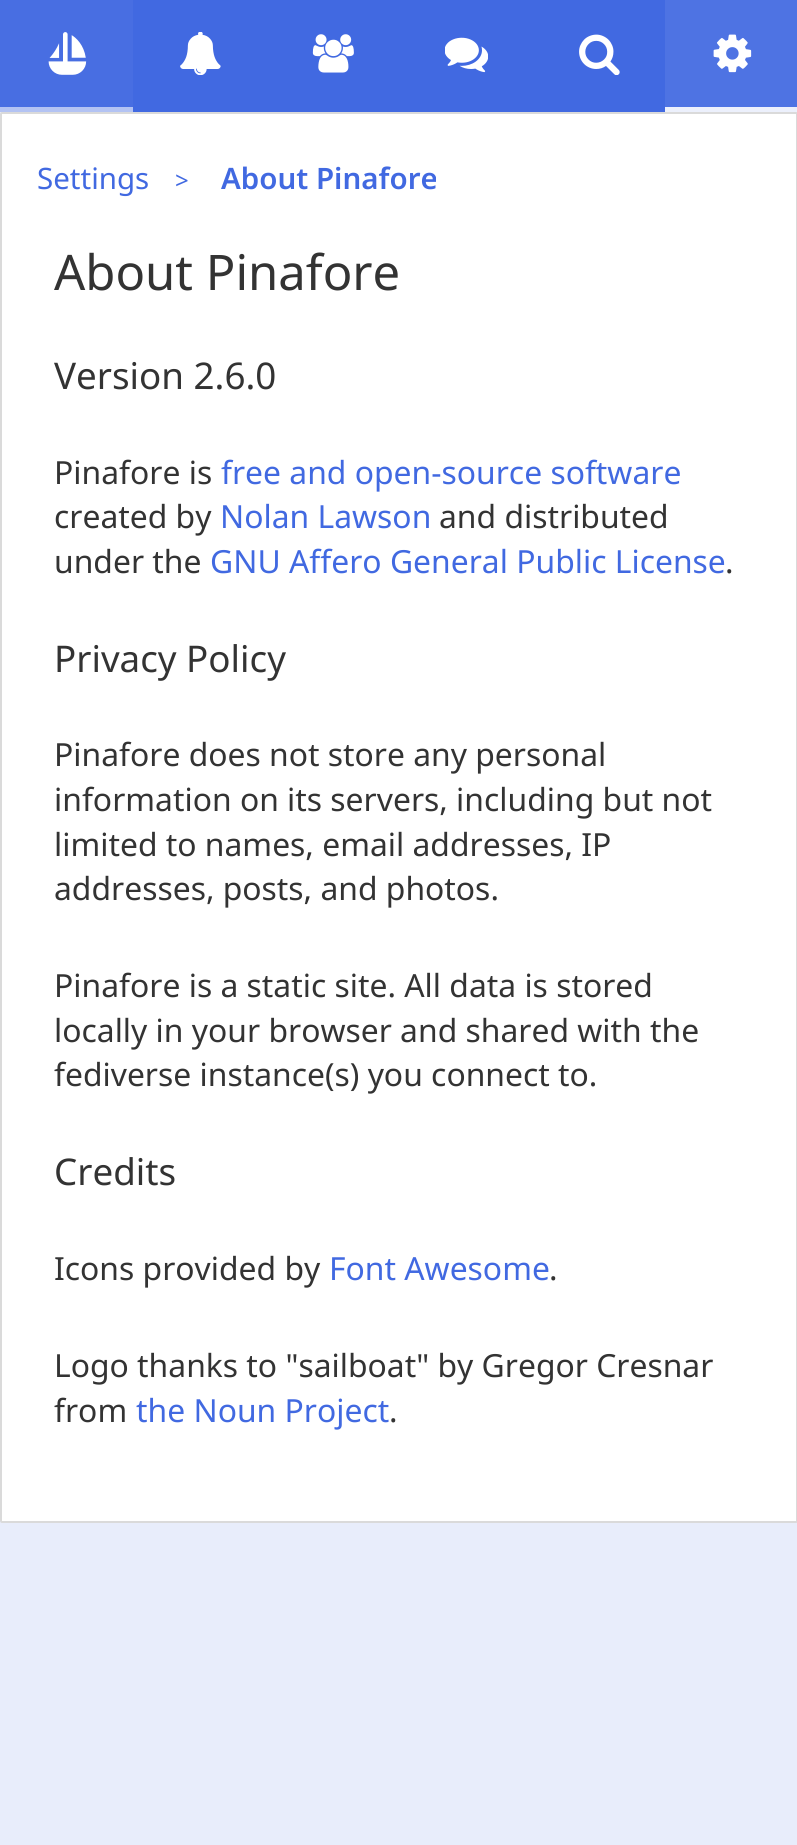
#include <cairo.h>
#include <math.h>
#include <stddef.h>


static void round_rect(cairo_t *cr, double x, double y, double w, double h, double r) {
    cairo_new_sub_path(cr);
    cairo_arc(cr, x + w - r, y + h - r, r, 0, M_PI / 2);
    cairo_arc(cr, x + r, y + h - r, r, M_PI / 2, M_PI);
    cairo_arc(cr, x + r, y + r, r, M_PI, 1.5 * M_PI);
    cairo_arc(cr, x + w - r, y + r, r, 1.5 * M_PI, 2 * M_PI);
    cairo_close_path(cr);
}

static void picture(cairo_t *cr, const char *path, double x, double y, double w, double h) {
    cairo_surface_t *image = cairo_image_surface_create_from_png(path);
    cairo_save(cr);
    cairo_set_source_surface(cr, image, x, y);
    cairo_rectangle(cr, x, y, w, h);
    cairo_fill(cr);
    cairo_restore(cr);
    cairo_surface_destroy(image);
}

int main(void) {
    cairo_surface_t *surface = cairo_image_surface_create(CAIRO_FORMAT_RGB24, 797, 1845);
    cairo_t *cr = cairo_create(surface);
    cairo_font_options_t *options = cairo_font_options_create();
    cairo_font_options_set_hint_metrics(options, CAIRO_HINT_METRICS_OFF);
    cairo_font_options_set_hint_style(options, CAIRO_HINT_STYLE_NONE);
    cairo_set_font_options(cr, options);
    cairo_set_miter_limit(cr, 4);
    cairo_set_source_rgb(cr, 0.91, 0.929, 0.984);
    cairo_paint(cr);
    cairo_set_source_rgb(cr, 0.255, 0.412, 0.882);
    cairo_rectangle(cr, 133, 0, 532, 112);
    cairo_fill(cr);
    cairo_set_source_rgb(cr, 0.282, 0.431, 0.886);
    cairo_rectangle(cr, 0, 0, 133, 107);
    cairo_fill(cr);
    picture(cr, "img1.png", 48, 32, 39, 43);
    cairo_set_source_rgb(cr, 0.702, 0.765, 0.953);
    cairo_rectangle(cr, 0, 107, 133, 5);
    cairo_fill(cr);
    picture(cr, "img2.png", 180, 32, 41, 43);
    picture(cr, "img3.png", 312, 34, 42, 39);
    picture(cr, "img4.png", 445, 37, 43, 36);
    picture(cr, "img5.png", 579, 34, 41, 41);
    cairo_set_source_rgb(cr, 0.306, 0.451, 0.89);
    cairo_rectangle(cr, 665, 0, 132, 107);
    cairo_fill(cr);
    picture(cr, "img6.png", 713, 34, 39, 39);
    cairo_set_source_rgb(cr, 0.925, 0.941, 0.988);
    cairo_rectangle(cr, 665, 107, 132, 5);
    cairo_fill(cr);
    cairo_set_source_rgb(cr, 1, 1, 1);
    round_rect(cr, 1, 113, 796, 1409, 1);
    cairo_fill_preserve(cr);
    cairo_set_source_rgb(cr, 0.855, 0.855, 0.855);
    cairo_stroke(cr);
    cairo_select_font_face(cr, "Noto Sans", CAIRO_FONT_SLANT_NORMAL, CAIRO_FONT_WEIGHT_NORMAL);
    cairo_set_font_size(cr, 29.5);
    cairo_set_source_rgb(cr, 0.255, 0.412, 0.882);
    cairo_move_to(cr, 37, 189);
    cairo_show_text(cr, "Settings");
    cairo_set_font_size(cr, 24);
    cairo_move_to(cr, 175, 189);
    cairo_show_text(cr, ">");
    cairo_select_font_face(cr, "Noto Sans SemiBold", CAIRO_FONT_SLANT_NORMAL, CAIRO_FONT_WEIGHT_NORMAL);
    cairo_set_font_size(cr, 29.5);
    cairo_move_to(cr, 221, 189);
    cairo_show_text(cr, "About Pinafore");
    cairo_select_font_face(cr, "Noto Sans", CAIRO_FONT_SLANT_NORMAL, CAIRO_FONT_WEIGHT_NORMAL);
    cairo_set_font_size(cr, 49);
    cairo_set_source_rgb(cr, 0.2, 0.2, 0.2);
    cairo_move_to(cr, 54, 290);
    cairo_show_text(cr, "About Pinafore");
    cairo_set_font_size(cr, 36.75);
    cairo_move_to(cr, 54, 389);
    cairo_show_text(cr, "Version 2.6.0");
    cairo_set_font_size(cr, 31.85);
    cairo_move_to(cr, 54, 484);
    cairo_show_text(cr, "Pinafore is");
    cairo_set_source_rgb(cr, 0.255, 0.412, 0.882);
    cairo_move_to(cr, 221, 484);
    cairo_show_text(cr, "free and open-source software");
    cairo_set_source_rgb(cr, 0.2, 0.2, 0.2);
    cairo_move_to(cr, 54, 528);
    cairo_show_text(cr, "created by");
    cairo_set_source_rgb(cr, 0.255, 0.412, 0.882);
    cairo_move_to(cr, 220, 528);
    cairo_show_text(cr, "Nolan Lawson");
    cairo_set_source_rgb(cr, 0.2, 0.2, 0.2);
    cairo_move_to(cr, 439, 528);
    cairo_show_text(cr, "and distributed");
    cairo_move_to(cr, 54, 573);
    cairo_show_text(cr, "under the");
    cairo_set_source_rgb(cr, 0.255, 0.412, 0.882);
    cairo_move_to(cr, 210, 573);
    cairo_show_text(cr, "GNU Affero General Public License");
    cairo_set_source_rgb(cr, 0.2, 0.2, 0.2);
    cairo_move_to(cr, 725, 573);
    cairo_show_text(cr, ".");
    cairo_set_font_size(cr, 36.75);
    cairo_move_to(cr, 54, 672);
    cairo_show_text(cr, "Privacy Policy");
    cairo_set_font_size(cr, 31.85);
    cairo_move_to(cr, 54, 766);
    cairo_show_text(cr, "Pinafore does not store any personal");
    cairo_move_to(cr, 54, 811);
    cairo_show_text(cr, "information on its servers, including but not");
    cairo_move_to(cr, 54, 856);
    cairo_show_text(cr, "limited to names, email addresses, IP");
    cairo_move_to(cr, 54, 900);
    cairo_show_text(cr, "addresses, posts, and photos.");
    cairo_move_to(cr, 54, 997);
    cairo_show_text(cr, "Pinafore is a static site. All data is stored");
    cairo_move_to(cr, 54, 1042);
    cairo_show_text(cr, "locally in your browser and shared with the");
    cairo_move_to(cr, 54, 1086);
    cairo_show_text(cr, "fediverse instance(s) you connect to.");
    cairo_set_font_size(cr, 36.75);
    cairo_move_to(cr, 54, 1185);
    cairo_show_text(cr, "Credits");
    cairo_set_font_size(cr, 31.85);
    cairo_move_to(cr, 54, 1280);
    cairo_show_text(cr, "Icons provided by");
    cairo_set_source_rgb(cr, 0.255, 0.412, 0.882);
    cairo_move_to(cr, 329, 1280);
    cairo_show_text(cr, "Font Awesome");
    cairo_set_source_rgb(cr, 0.2, 0.2, 0.2);
    cairo_move_to(cr, 549, 1280);
    cairo_show_text(cr, ".");
    cairo_move_to(cr, 54, 1377);
    cairo_show_text(cr, "Logo thanks to \"sailboat\" by Gregor Cresnar");
    cairo_move_to(cr, 54, 1422);
    cairo_show_text(cr, "from");
    cairo_set_source_rgb(cr, 0.255, 0.412, 0.882);
    cairo_move_to(cr, 136, 1422);
    cairo_show_text(cr, "the Noun Project");
    cairo_set_source_rgb(cr, 0.2, 0.2, 0.2);
    cairo_move_to(cr, 389, 1422);
    cairo_show_text(cr, ".");
    cairo_surface_write_to_png(surface, "page.png");
    cairo_font_options_destroy(options);
    cairo_destroy(cr);
    cairo_surface_destroy(surface);
    return 0;
}
